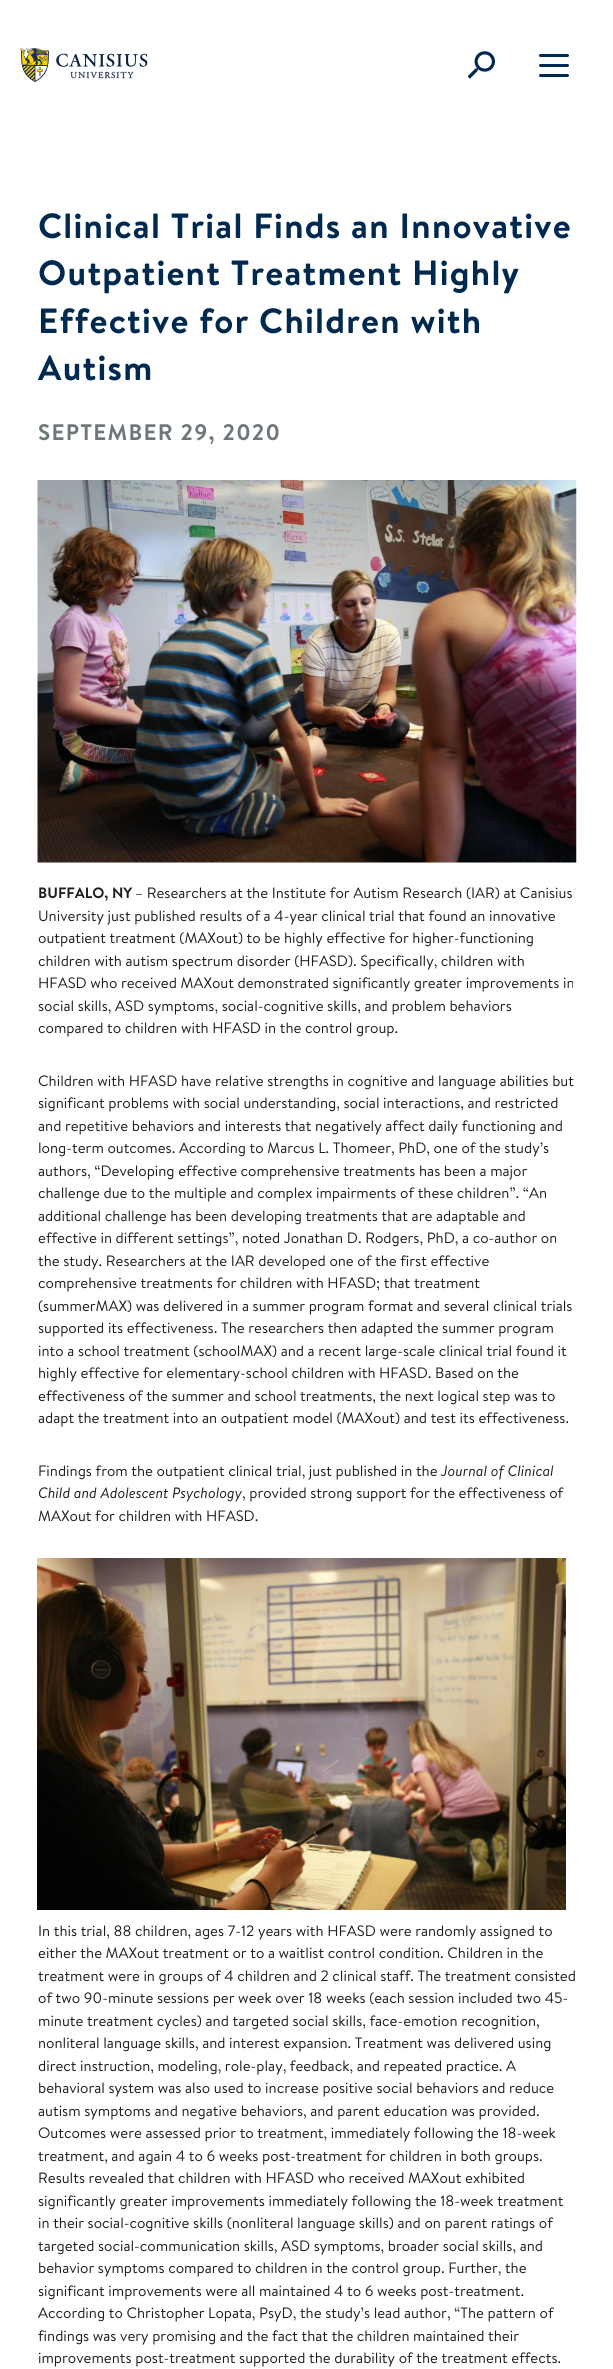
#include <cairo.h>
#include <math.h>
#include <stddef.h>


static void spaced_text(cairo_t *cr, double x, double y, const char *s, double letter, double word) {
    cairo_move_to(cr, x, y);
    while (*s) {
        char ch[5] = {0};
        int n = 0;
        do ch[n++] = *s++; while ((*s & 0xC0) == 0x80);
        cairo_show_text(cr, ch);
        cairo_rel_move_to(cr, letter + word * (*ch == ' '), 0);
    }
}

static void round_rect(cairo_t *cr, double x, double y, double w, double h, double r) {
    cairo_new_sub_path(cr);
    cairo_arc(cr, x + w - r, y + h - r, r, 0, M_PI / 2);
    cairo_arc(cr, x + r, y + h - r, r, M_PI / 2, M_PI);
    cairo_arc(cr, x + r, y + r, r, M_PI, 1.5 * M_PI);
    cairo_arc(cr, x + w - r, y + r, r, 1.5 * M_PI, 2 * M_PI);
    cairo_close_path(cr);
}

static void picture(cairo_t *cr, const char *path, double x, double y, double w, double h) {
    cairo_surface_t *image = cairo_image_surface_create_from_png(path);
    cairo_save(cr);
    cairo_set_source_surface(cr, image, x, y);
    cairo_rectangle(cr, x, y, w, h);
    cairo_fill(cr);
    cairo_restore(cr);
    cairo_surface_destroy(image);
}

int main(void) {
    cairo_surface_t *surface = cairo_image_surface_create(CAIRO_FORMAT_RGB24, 613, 2369);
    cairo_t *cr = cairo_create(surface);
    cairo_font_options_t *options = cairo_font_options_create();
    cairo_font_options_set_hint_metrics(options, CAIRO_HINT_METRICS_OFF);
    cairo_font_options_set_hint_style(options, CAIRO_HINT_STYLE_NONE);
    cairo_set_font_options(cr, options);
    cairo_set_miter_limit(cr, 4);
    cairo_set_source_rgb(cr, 1, 1, 1);
    cairo_paint(cr);
    picture(cr, "img1.png", 20, 48, 128, 34);
    picture(cr, "img2.png", 468, 51, 27, 28);
    cairo_set_source_rgb(cr, 0, 0.161, 0.314);
    round_rect(cr, 539, 64, 30, 3, 1.5);
    cairo_fill(cr);
    round_rect(cr, 539, 54, 30, 3, 1.5);
    cairo_fill(cr);
    round_rect(cr, 539, 74, 30, 3, 1.5);
    cairo_fill(cr);
    cairo_select_font_face(cr, "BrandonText", CAIRO_FONT_SLANT_NORMAL, CAIRO_FONT_WEIGHT_BOLD);
    cairo_set_font_size(cr, 35);
    spaced_text(cr, 38, 238, "Clinical Trial Finds an Innovative", 1.25, 0);
    spaced_text(cr, 38, 285, "Outpatient Treatment Highly", 1.25, 0);
    spaced_text(cr, 38, 333, "Effective for Children with", 1.25, 0);
    spaced_text(cr, 38, 380, "Autism", 1.25, 0);
    cairo_set_font_size(cr, 22.5);
    cairo_set_source_rgb(cr, 0.435, 0.467, 0.482);
    spaced_text(cr, 38, 440, "SEPTEMBER 29, 2020", 1.25, 0);
    picture(cr, "img3.png", 37, 480, 540, 383);
    cairo_set_font_size(cr, 15);
    cairo_set_source_rgb(cr, 0.118, 0.118, 0.118);
    cairo_move_to(cr, 38, 898);
    cairo_show_text(cr, "BUFFALO, NY");
    cairo_select_font_face(cr, "BrandonText", CAIRO_FONT_SLANT_NORMAL, CAIRO_FONT_WEIGHT_NORMAL);
    cairo_move_to(cr, 135, 898);
    cairo_show_text(cr, "– Researchers at the Institute for Autism Research (IAR) at Canisius");
    cairo_move_to(cr, 38, 921);
    cairo_show_text(cr, "University just published results of a 4-year clinical trial that found an innovative");
    cairo_move_to(cr, 38, 943);
    cairo_show_text(cr, "outpatient treatment (MAXout) to be highly effective for higher-functioning");
    cairo_move_to(cr, 38, 966);
    cairo_show_text(cr, "children with autism spectrum disorder (HFASD). Specifically, children with");
    cairo_move_to(cr, 38, 988);
    cairo_show_text(cr, "HFASD who received MAXout demonstrated significantly greater improvements in");
    cairo_move_to(cr, 38, 1011);
    cairo_show_text(cr, "social skills, ASD symptoms, social-cognitive skills, and problem behaviors");
    cairo_move_to(cr, 38, 1033);
    cairo_show_text(cr, "compared to children with HFASD in the control group.");
    cairo_move_to(cr, 38, 1086);
    cairo_show_text(cr, "Children with HFASD have relative strengths in cognitive and language abilities but");
    cairo_move_to(cr, 38, 1108);
    cairo_show_text(cr, "significant problems with social understanding, social interactions, and restricted");
    cairo_move_to(cr, 38, 1131);
    cairo_show_text(cr, "and repetitive behaviors and interests that negatively affect daily functioning and");
    cairo_move_to(cr, 38, 1153);
    cairo_show_text(cr, "long-term outcomes. According to Marcus L. Thomeer, PhD, one of the study’s");
    cairo_move_to(cr, 38, 1176);
    cairo_show_text(cr, "authors, “Developing effective comprehensive treatments has been a major");
    cairo_move_to(cr, 38, 1198);
    cairo_show_text(cr, "challenge due to the multiple and complex impairments of these children”. “An");
    cairo_move_to(cr, 38, 1221);
    cairo_show_text(cr, "additional challenge has been developing treatments that are adaptable and");
    cairo_move_to(cr, 38, 1243);
    cairo_show_text(cr, "effective in different settings”, noted Jonathan D. Rodgers, PhD, a co-author on");
    cairo_move_to(cr, 38, 1266);
    cairo_show_text(cr, "the study. Researchers at the IAR developed one of the first effective");
    cairo_move_to(cr, 38, 1288);
    cairo_show_text(cr, "comprehensive treatments for children with HFASD; that treatment");
    cairo_move_to(cr, 38, 1311);
    cairo_show_text(cr, "(summerMAX) was delivered in a summer program format and several clinical trials");
    cairo_move_to(cr, 38, 1333);
    cairo_show_text(cr, "supported its effectiveness. The researchers then adapted the summer program");
    cairo_move_to(cr, 38, 1356);
    cairo_show_text(cr, "into a school treatment (schoolMAX) and a recent large-scale clinical trial found it");
    cairo_move_to(cr, 38, 1378);
    cairo_show_text(cr, "highly effective for elementary-school children with HFASD. Based on the");
    cairo_move_to(cr, 38, 1401);
    cairo_show_text(cr, "effectiveness of the summer and school treatments, the next logical step was to");
    cairo_move_to(cr, 38, 1423);
    cairo_show_text(cr, "adapt the treatment into an outpatient model (MAXout) and test its effectiveness.");
    cairo_move_to(cr, 38, 1476);
    cairo_show_text(cr, "Findings from the outpatient clinical trial, just published in the");
    cairo_select_font_face(cr, "BrandonText", CAIRO_FONT_SLANT_ITALIC, CAIRO_FONT_WEIGHT_NORMAL);
    cairo_move_to(cr, 441, 1476);
    cairo_show_text(cr, "Journal of Clinical");
    cairo_move_to(cr, 38, 1498);
    cairo_show_text(cr, "Child and Adolescent Psychology");
    cairo_select_font_face(cr, "BrandonText", CAIRO_FONT_SLANT_NORMAL, CAIRO_FONT_WEIGHT_NORMAL);
    cairo_move_to(cr, 242, 1498);
    cairo_show_text(cr, ", provided strong support for the effectiveness of");
    cairo_move_to(cr, 38, 1521);
    cairo_show_text(cr, "MAXout for children with HFASD.");
    picture(cr, "img4.png", 37, 1558, 529, 352);
    cairo_move_to(cr, 38, 1936);
    cairo_show_text(cr, "In this trial, 88 children, ages 7-12 years with HFASD were randomly assigned to");
    cairo_move_to(cr, 38, 1958);
    cairo_show_text(cr, "either the MAXout treatment or to a waitlist control condition. Children in the");
    cairo_move_to(cr, 38, 1981);
    cairo_show_text(cr, "treatment were in groups of 4 children and 2 clinical staff. The treatment consisted");
    cairo_move_to(cr, 38, 2003);
    cairo_show_text(cr, "of two 90-minute sessions per week over 18 weeks (each session included two 45-");
    cairo_move_to(cr, 38, 2026);
    cairo_show_text(cr, "minute treatment cycles) and targeted social skills, face-emotion recognition,");
    cairo_move_to(cr, 38, 2048);
    cairo_show_text(cr, "nonliteral language skills, and interest expansion. Treatment was delivered using");
    cairo_move_to(cr, 38, 2071);
    cairo_show_text(cr, "direct instruction, modeling, role-play, feedback, and repeated practice. A");
    cairo_move_to(cr, 38, 2093);
    cairo_show_text(cr, "behavioral system was also used to increase positive social behaviors and reduce");
    cairo_move_to(cr, 38, 2116);
    cairo_show_text(cr, "autism symptoms and negative behaviors, and parent education was provided.");
    cairo_move_to(cr, 38, 2138);
    cairo_show_text(cr, "Outcomes were assessed prior to treatment, immediately following the 18-week");
    cairo_move_to(cr, 38, 2161);
    cairo_show_text(cr, "treatment, and again 4 to 6 weeks post-treatment for children in both groups.");
    cairo_move_to(cr, 38, 2183);
    cairo_show_text(cr, "Results revealed that children with HFASD who received MAXout exhibited");
    cairo_move_to(cr, 38, 2206);
    cairo_show_text(cr, "significantly greater improvements immediately following the 18-week treatment");
    cairo_move_to(cr, 38, 2228);
    cairo_show_text(cr, "in their social-cognitive skills (nonliteral language skills) and on parent ratings of");
    cairo_move_to(cr, 38, 2251);
    cairo_show_text(cr, "targeted social-communication skills, ASD symptoms, broader social skills, and");
    cairo_move_to(cr, 38, 2273);
    cairo_show_text(cr, "behavior symptoms compared to children in the control group. Further, the");
    cairo_move_to(cr, 38, 2296);
    cairo_show_text(cr, "significant improvements were all maintained 4 to 6 weeks post-treatment.");
    cairo_move_to(cr, 38, 2318);
    cairo_show_text(cr, "According to Christopher Lopata, PsyD, the study’s lead author, “The pattern of");
    cairo_move_to(cr, 38, 2341);
    cairo_show_text(cr, "findings was very promising and the fact that the children maintained their");
    cairo_move_to(cr, 38, 2363);
    cairo_show_text(cr, "improvements post-treatment supported the durability of the treatment effects.");
    cairo_surface_write_to_png(surface, "page.png");
    cairo_font_options_destroy(options);
    cairo_destroy(cr);
    cairo_surface_destroy(surface);
    return 0;
}
